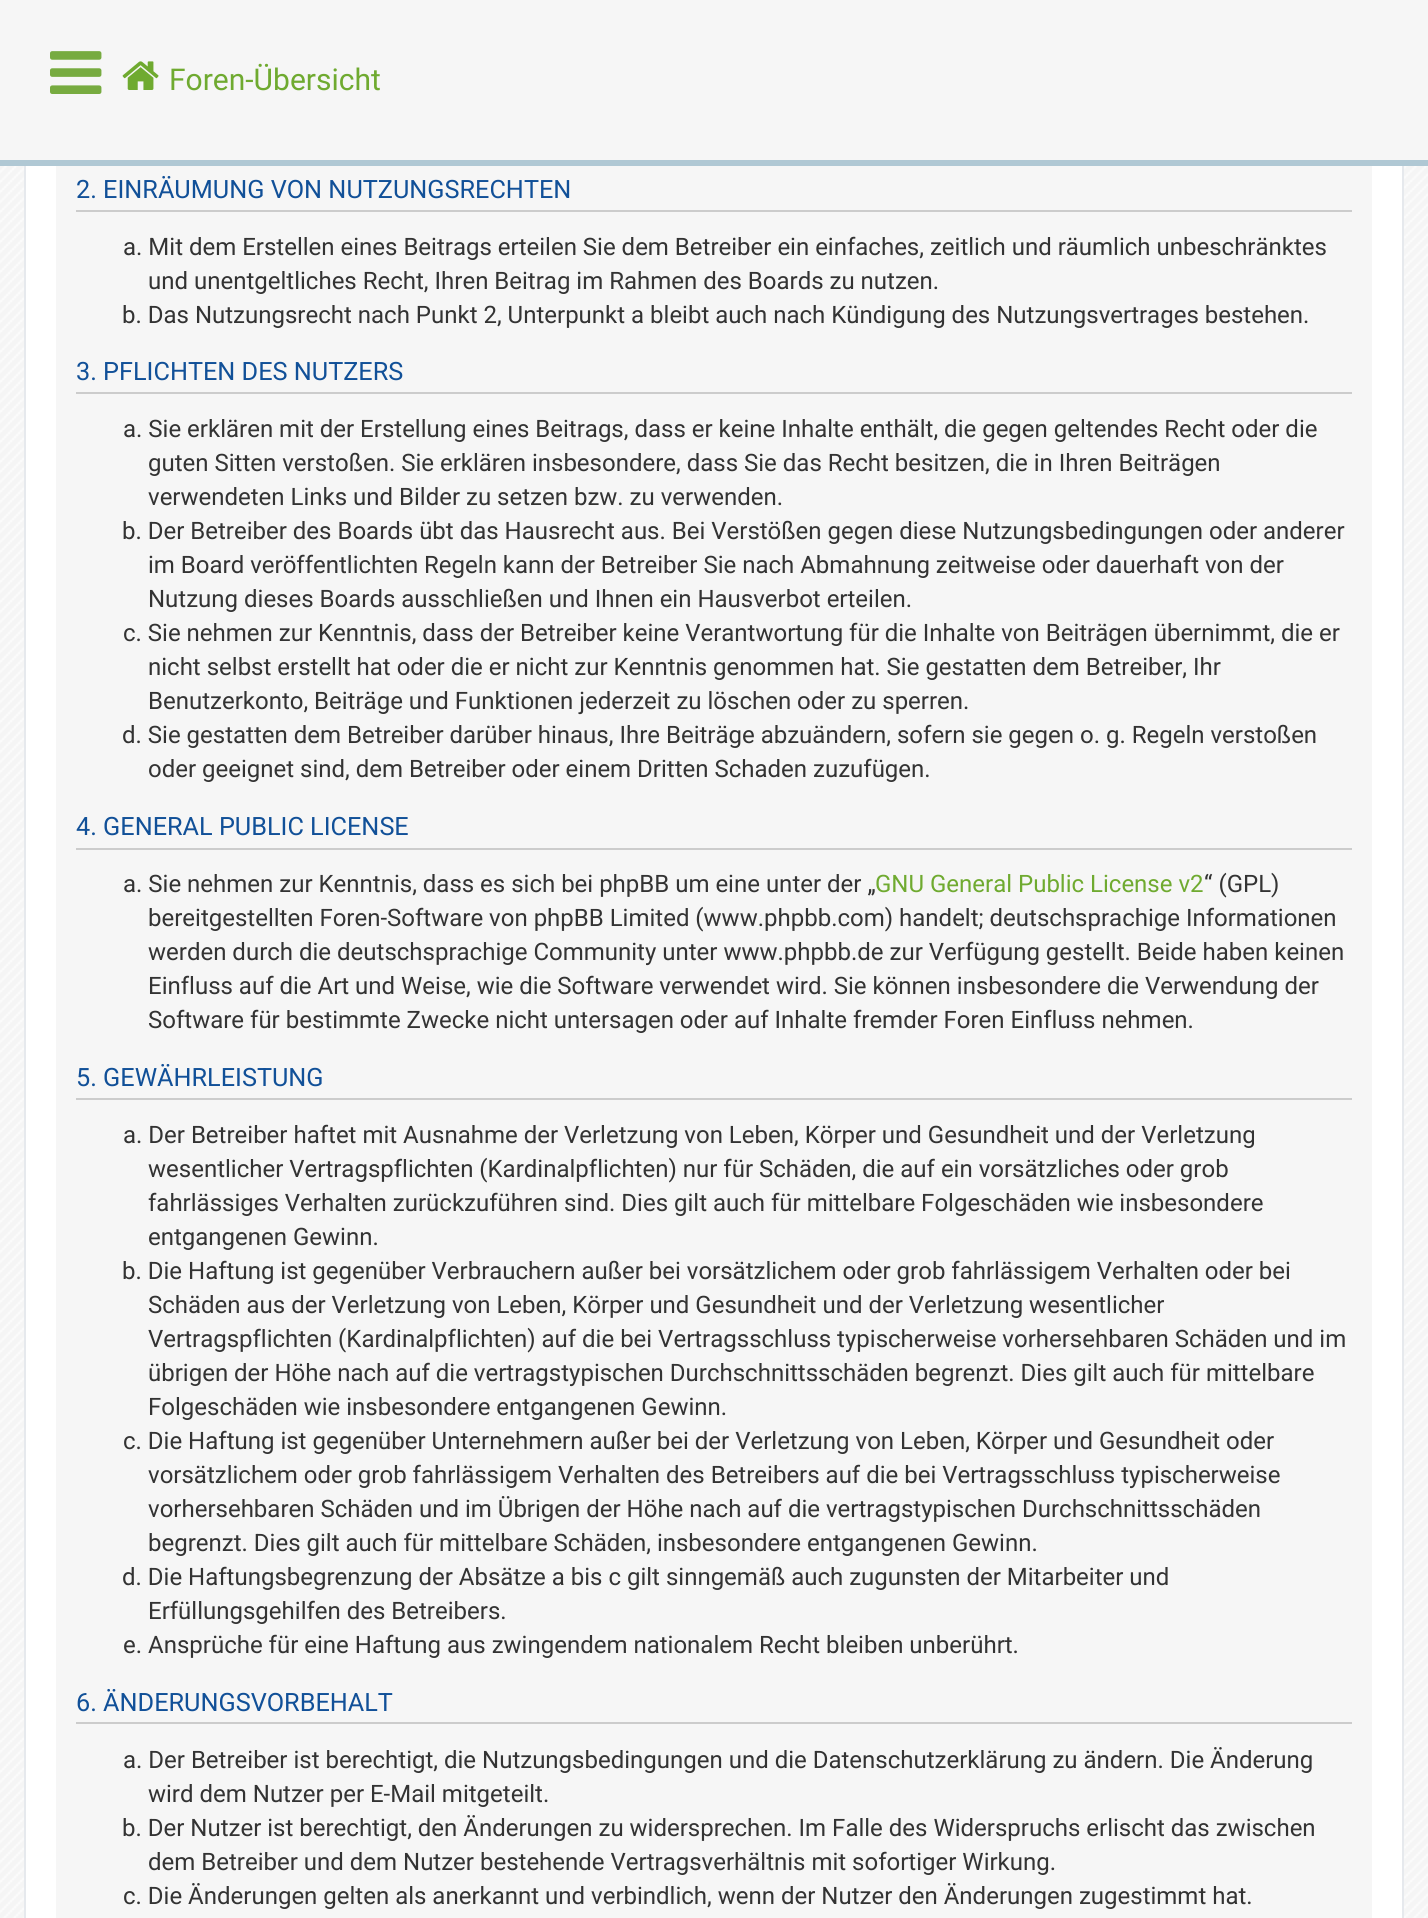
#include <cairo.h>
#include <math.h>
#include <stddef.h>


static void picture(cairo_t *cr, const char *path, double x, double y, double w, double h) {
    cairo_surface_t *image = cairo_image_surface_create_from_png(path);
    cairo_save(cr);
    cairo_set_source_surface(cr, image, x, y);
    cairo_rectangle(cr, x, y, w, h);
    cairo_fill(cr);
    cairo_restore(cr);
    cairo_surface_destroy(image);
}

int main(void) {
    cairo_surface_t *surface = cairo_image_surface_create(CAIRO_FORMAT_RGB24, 1428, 1918);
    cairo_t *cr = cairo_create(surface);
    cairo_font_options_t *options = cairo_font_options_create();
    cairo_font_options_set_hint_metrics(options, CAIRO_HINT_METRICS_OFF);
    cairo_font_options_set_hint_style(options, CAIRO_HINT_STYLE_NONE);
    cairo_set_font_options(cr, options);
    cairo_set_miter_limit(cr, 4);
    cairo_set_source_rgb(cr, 1, 1, 1);
    cairo_paint(cr);
    picture(cr, "img1.png", 0, 166, 1428, 1752);
    cairo_set_source_rgb(cr, 1, 1, 1);
    cairo_rectangle(cr, 26, 166, 1376, 1752);
    cairo_fill(cr);
    cairo_rectangle(cr, 25, -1, 1378, 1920);
    cairo_set_source_rgb(cr, 0.902, 0.914, 0.929);
    cairo_stroke(cr);
    cairo_set_source_rgb(cr, 0.961, 0.961, 0.961);
    cairo_rectangle(cr, 0, 0, 1428, 160);
    cairo_fill(cr);
    cairo_set_source_rgb(cr, 0.69, 0.784, 0.831);
    cairo_rectangle(cr, 0, 160, 1428, 6);
    cairo_fill(cr);
    picture(cr, "img2.png", 50, 51, 52, 43);
    picture(cr, "img3.png", 122, 61, 37, 29);
    cairo_select_font_face(cr, "Roboto", CAIRO_FONT_SLANT_NORMAL, CAIRO_FONT_WEIGHT_NORMAL);
    cairo_set_font_size(cr, 30);
    cairo_set_source_rgb(cr, 0.435, 0.667, 0.188);
    cairo_move_to(cr, 169, 90);
    cairo_show_text(cr, "Foren-Übersicht");
    cairo_set_source_rgb(cr, 0.961, 0.961, 0.961);
    cairo_rectangle(cr, 56, 166, 1316, 1752);
    cairo_fill(cr);
    cairo_set_source_rgb(cr, 0.8, 0.8, 0.8);
    cairo_rectangle(cr, 76, 210, 1276, 2);
    cairo_fill(cr);
    cairo_set_font_size(cr, 25.25);
    cairo_set_source_rgb(cr, 0.067, 0.314, 0.596);
    cairo_move_to(cr, 76, 198);
    cairo_show_text(cr, "2. EINRÄUMUNG VON NUTZUNGSRECHTEN");
    cairo_set_font_size(cr, 24);
    cairo_set_source_rgb(cr, 0.2, 0.2, 0.2);
    cairo_move_to(cr, 123, 255);
    cairo_show_text(cr, "a. Mit dem Erstellen eines Beitrags erteilen Sie dem Betreiber ein einfaches, zeitlich und räumlich unbeschränktes");
    cairo_move_to(cr, 148, 289);
    cairo_show_text(cr, "und unentgeltliches Recht, Ihren Beitrag im Rahmen des Boards zu nutzen.");
    cairo_move_to(cr, 122, 323);
    cairo_show_text(cr, "b. Das Nutzungsrecht nach Punkt 2, Unterpunkt a bleibt auch nach Kündigung des Nutzungsvertrages bestehen.");
    cairo_set_source_rgb(cr, 0.8, 0.8, 0.8);
    cairo_rectangle(cr, 76, 392, 1276, 2);
    cairo_fill(cr);
    cairo_set_font_size(cr, 25.25);
    cairo_set_source_rgb(cr, 0.067, 0.314, 0.596);
    cairo_move_to(cr, 76, 380);
    cairo_show_text(cr, "3. PFLICHTEN DES NUTZERS");
    cairo_set_font_size(cr, 24);
    cairo_set_source_rgb(cr, 0.2, 0.2, 0.2);
    cairo_move_to(cr, 123, 437);
    cairo_show_text(cr, "a. Sie erklären mit der Erstellung eines Beitrags, dass er keine Inhalte enthält, die gegen geltendes Recht oder die");
    cairo_move_to(cr, 148, 471);
    cairo_show_text(cr, "guten Sitten verstoßen. Sie erklären insbesondere, dass Sie das Recht besitzen, die in Ihren Beiträgen");
    cairo_move_to(cr, 148, 505);
    cairo_show_text(cr, "verwendeten Links und Bilder zu setzen bzw. zu verwenden.");
    cairo_move_to(cr, 122, 539);
    cairo_show_text(cr, "b. Der Betreiber des Boards übt das Hausrecht aus. Bei Verstößen gegen diese Nutzungsbedingungen oder anderer");
    cairo_move_to(cr, 148, 573);
    cairo_show_text(cr, "im Board veröffentlichten Regeln kann der Betreiber Sie nach Abmahnung zeitweise oder dauerhaft von der");
    cairo_move_to(cr, 148, 607);
    cairo_show_text(cr, "Nutzung dieses Boards ausschließen und Ihnen ein Hausverbot erteilen.");
    cairo_move_to(cr, 123, 641);
    cairo_show_text(cr, "c. Sie nehmen zur Kenntnis, dass der Betreiber keine Verantwortung für die Inhalte von Beiträgen übernimmt, die er");
    cairo_move_to(cr, 148, 675);
    cairo_show_text(cr, "nicht selbst erstellt hat oder die er nicht zur Kenntnis genommen hat. Sie gestatten dem Betreiber, Ihr");
    cairo_move_to(cr, 148, 709);
    cairo_show_text(cr, "Benutzerkonto, Beiträge und Funktionen jederzeit zu löschen oder zu sperren.");
    cairo_move_to(cr, 122, 743);
    cairo_show_text(cr, "d. Sie gestatten dem Betreiber darüber hinaus, Ihre Beiträge abzuändern, sofern sie gegen o. g. Regeln verstoßen");
    cairo_move_to(cr, 148, 777);
    cairo_show_text(cr, "oder geeignet sind, dem Betreiber oder einem Dritten Schaden zuzufügen.");
    cairo_set_source_rgb(cr, 0.8, 0.8, 0.8);
    cairo_rectangle(cr, 76, 848, 1276, 2);
    cairo_fill(cr);
    cairo_set_font_size(cr, 25.25);
    cairo_set_source_rgb(cr, 0.067, 0.314, 0.596);
    cairo_move_to(cr, 76, 835);
    cairo_show_text(cr, "4. GENERAL PUBLIC LICENSE");
    cairo_set_font_size(cr, 24);
    cairo_set_source_rgb(cr, 0.2, 0.2, 0.2);
    cairo_move_to(cr, 123, 892);
    cairo_show_text(cr, "a. Sie nehmen zur Kenntnis, dass es sich bei phpBB um eine unter der „");
    cairo_set_source_rgb(cr, 0.435, 0.667, 0.188);
    cairo_move_to(cr, 875, 892);
    cairo_show_text(cr, "GNU General Public License v2");
    cairo_set_source_rgb(cr, 0.2, 0.2, 0.2);
    cairo_move_to(cr, 1204, 892);
    cairo_show_text(cr, "“ (GPL)");
    cairo_move_to(cr, 148, 926);
    cairo_show_text(cr, "bereitgestellten Foren-Software von phpBB Limited (www.phpbb.com) handelt; deutschsprachige Informationen");
    cairo_move_to(cr, 148, 960);
    cairo_show_text(cr, "werden durch die deutschsprachige Community unter www.phpbb.de zur Verfügung gestellt. Beide haben keinen");
    cairo_move_to(cr, 148, 994);
    cairo_show_text(cr, "Einfluss auf die Art und Weise, wie die Software verwendet wird. Sie können insbesondere die Verwendung der");
    cairo_move_to(cr, 148, 1028);
    cairo_show_text(cr, "Software für bestimmte Zwecke nicht untersagen oder auf Inhalte fremder Foren Einfluss nehmen.");
    cairo_set_source_rgb(cr, 0.8, 0.8, 0.8);
    cairo_rectangle(cr, 76, 1098, 1276, 2);
    cairo_fill(cr);
    cairo_set_font_size(cr, 25.25);
    cairo_set_source_rgb(cr, 0.067, 0.314, 0.596);
    cairo_move_to(cr, 76, 1086);
    cairo_show_text(cr, "5. GEWÄHRLEISTUNG");
    cairo_set_font_size(cr, 24);
    cairo_set_source_rgb(cr, 0.2, 0.2, 0.2);
    cairo_move_to(cr, 123, 1143);
    cairo_show_text(cr, "a. Der Betreiber haftet mit Ausnahme der Verletzung von Leben, Körper und Gesundheit und der Verletzung");
    cairo_move_to(cr, 148, 1177);
    cairo_show_text(cr, "wesentlicher Vertragspflichten (Kardinalpflichten) nur für Schäden, die auf ein vorsätzliches oder grob");
    cairo_move_to(cr, 148, 1211);
    cairo_show_text(cr, "fahrlässiges Verhalten zurückzuführen sind. Dies gilt auch für mittelbare Folgeschäden wie insbesondere");
    cairo_move_to(cr, 148, 1245);
    cairo_show_text(cr, "entgangenen Gewinn.");
    cairo_move_to(cr, 122, 1279);
    cairo_show_text(cr, "b. Die Haftung ist gegenüber Verbrauchern außer bei vorsätzlichem oder grob fahrlässigem Verhalten oder bei");
    cairo_move_to(cr, 148, 1313);
    cairo_show_text(cr, "Schäden aus der Verletzung von Leben, Körper und Gesundheit und der Verletzung wesentlicher");
    cairo_move_to(cr, 148, 1347);
    cairo_show_text(cr, "Vertragspflichten (Kardinalpflichten) auf die bei Vertragsschluss typischerweise vorhersehbaren Schäden und im");
    cairo_move_to(cr, 148, 1381);
    cairo_show_text(cr, "übrigen der Höhe nach auf die vertragstypischen Durchschnittsschäden begrenzt. Dies gilt auch für mittelbare");
    cairo_move_to(cr, 148, 1415);
    cairo_show_text(cr, "Folgeschäden wie insbesondere entgangenen Gewinn.");
    cairo_move_to(cr, 123, 1449);
    cairo_show_text(cr, "c. Die Haftung ist gegenüber Unternehmern außer bei der Verletzung von Leben, Körper und Gesundheit oder");
    cairo_move_to(cr, 148, 1483);
    cairo_show_text(cr, "vorsätzlichem oder grob fahrlässigem Verhalten des Betreibers auf die bei Vertragsschluss typischerweise");
    cairo_move_to(cr, 148, 1517);
    cairo_show_text(cr, "vorhersehbaren Schäden und im Übrigen der Höhe nach auf die vertragstypischen Durchschnittsschäden");
    cairo_move_to(cr, 148, 1551);
    cairo_show_text(cr, "begrenzt. Dies gilt auch für mittelbare Schäden, insbesondere entgangenen Gewinn.");
    cairo_move_to(cr, 122, 1585);
    cairo_show_text(cr, "d. Die Haftungsbegrenzung der Absätze a bis c gilt sinngemäß auch zugunsten der Mitarbeiter und");
    cairo_move_to(cr, 148, 1619);
    cairo_show_text(cr, "Erfüllungsgehilfen des Betreibers.");
    cairo_move_to(cr, 123, 1653);
    cairo_show_text(cr, "e. Ansprüche für eine Haftung aus zwingendem nationalem Recht bleiben unberührt.");
    cairo_set_source_rgb(cr, 0.8, 0.8, 0.8);
    cairo_rectangle(cr, 76, 1722, 1276, 2);
    cairo_fill(cr);
    cairo_set_font_size(cr, 25.25);
    cairo_set_source_rgb(cr, 0.067, 0.314, 0.596);
    cairo_move_to(cr, 76, 1711);
    cairo_show_text(cr, "6. ÄNDERUNGSVORBEHALT");
    cairo_set_font_size(cr, 24);
    cairo_set_source_rgb(cr, 0.2, 0.2, 0.2);
    cairo_move_to(cr, 123, 1768);
    cairo_show_text(cr, "a. Der Betreiber ist berechtigt, die Nutzungsbedingungen und die Datenschutzerklärung zu ändern. Die Änderung");
    cairo_move_to(cr, 148, 1802);
    cairo_show_text(cr, "wird dem Nutzer per E-Mail mitgeteilt.");
    cairo_move_to(cr, 122, 1836);
    cairo_show_text(cr, "b. Der Nutzer ist berechtigt, den Änderungen zu widersprechen. Im Falle des Widerspruchs erlischt das zwischen");
    cairo_move_to(cr, 148, 1870);
    cairo_show_text(cr, "dem Betreiber und dem Nutzer bestehende Vertragsverhältnis mit sofortiger Wirkung.");
    cairo_move_to(cr, 123, 1904);
    cairo_show_text(cr, "c. Die Änderungen gelten als anerkannt und verbindlich, wenn der Nutzer den Änderungen zugestimmt hat.");
    cairo_surface_write_to_png(surface, "page.png");
    cairo_font_options_destroy(options);
    cairo_destroy(cr);
    cairo_surface_destroy(surface);
    return 0;
}
